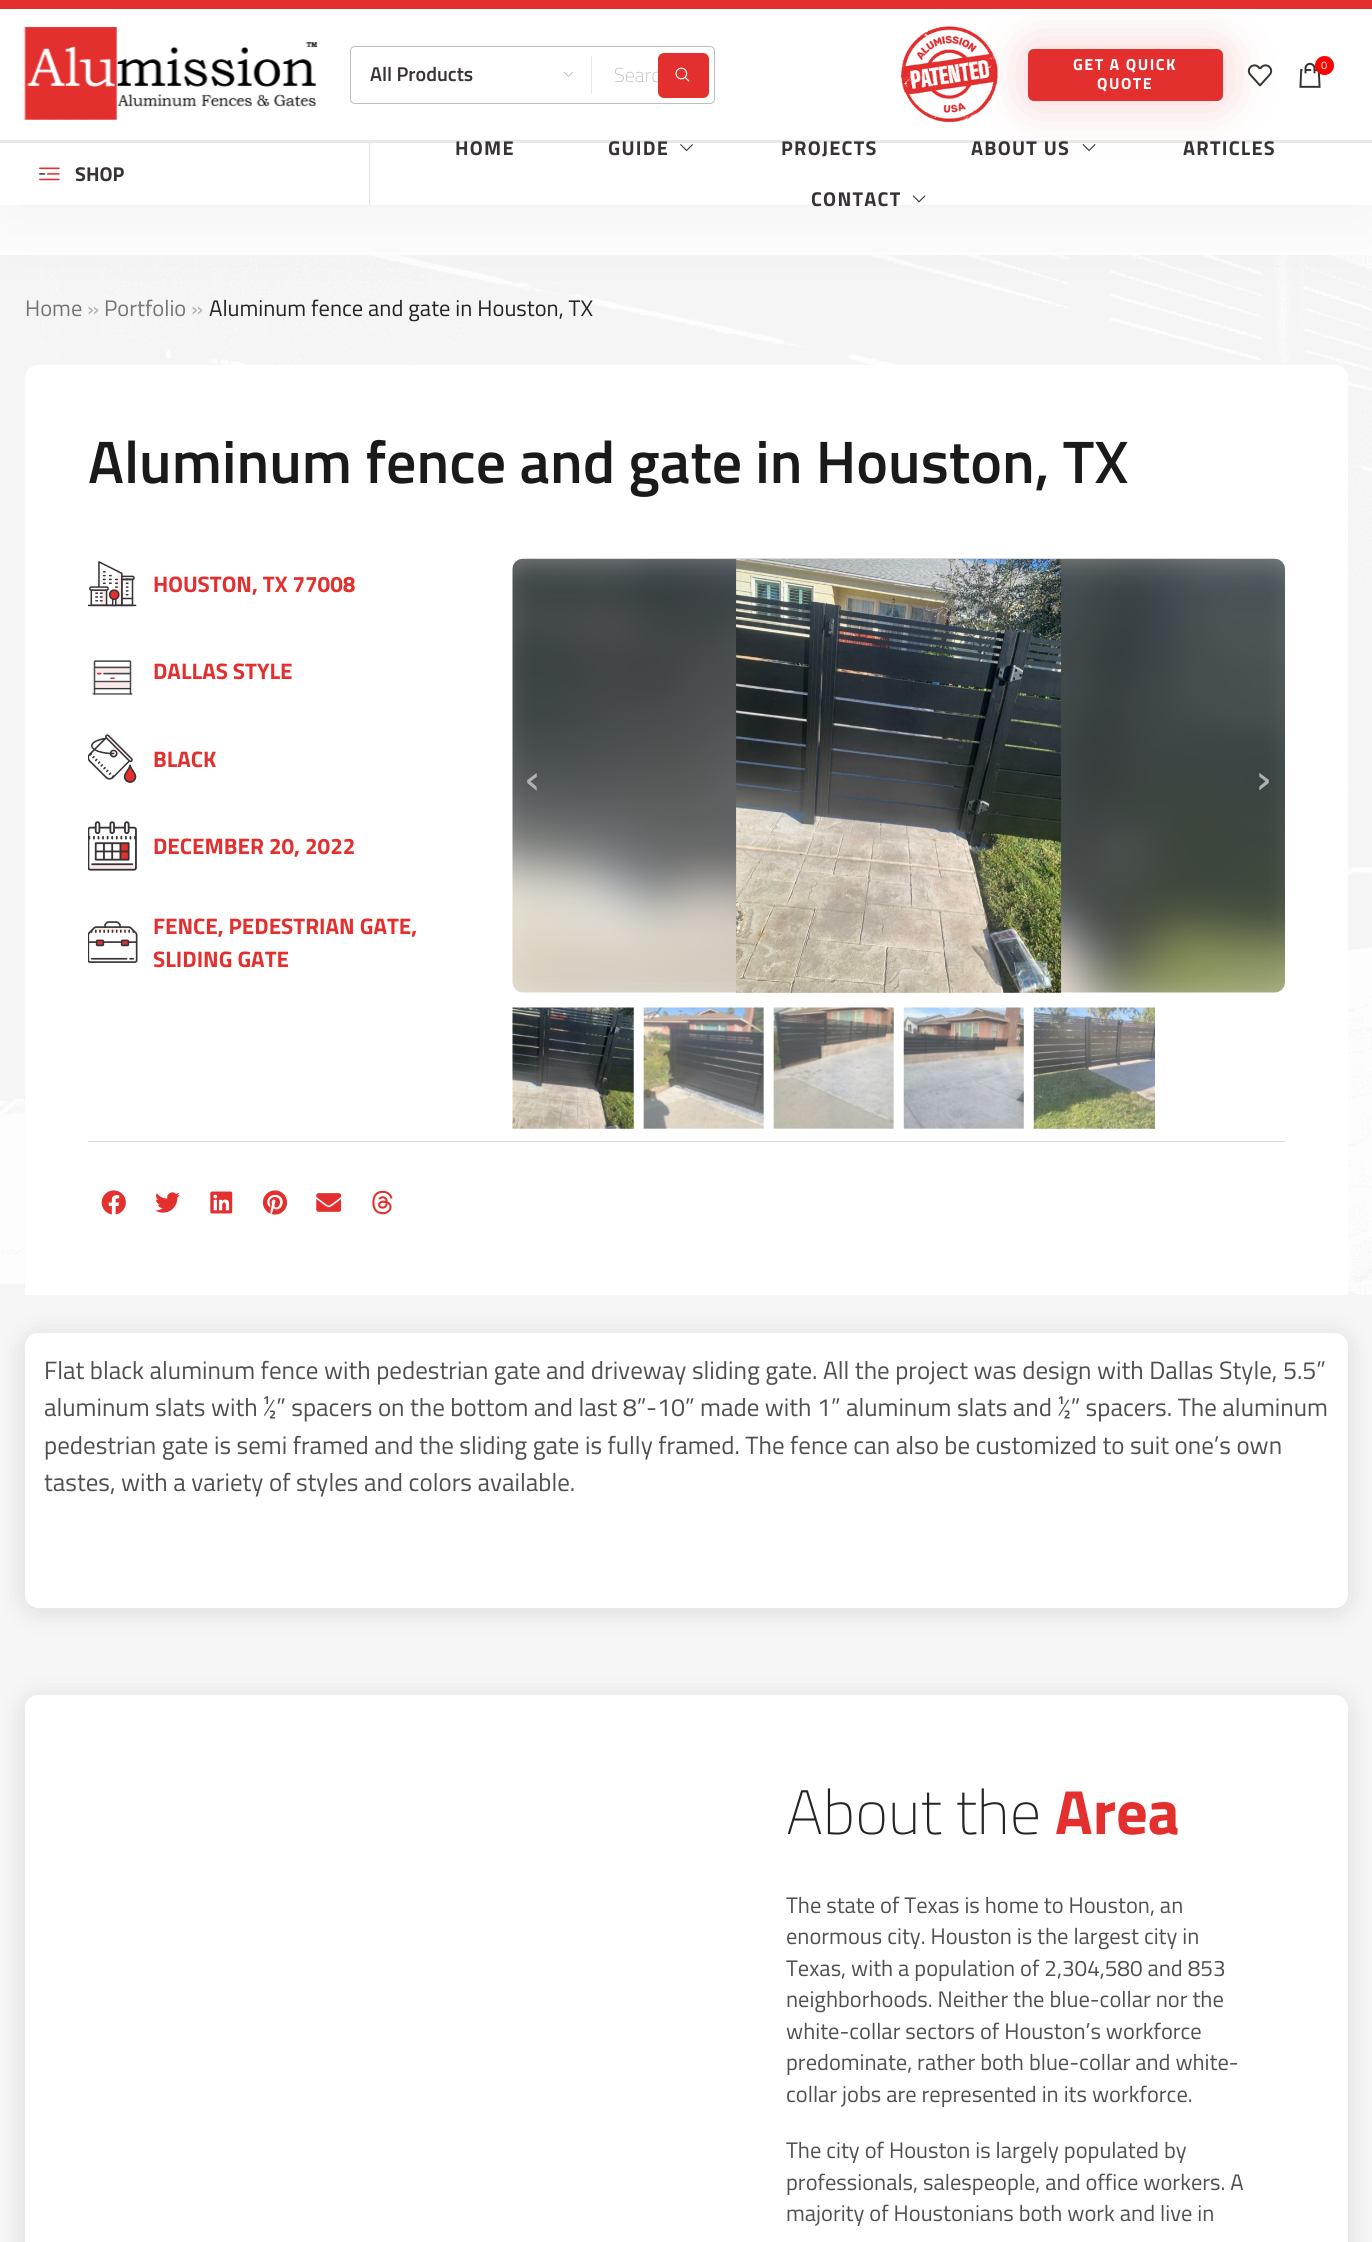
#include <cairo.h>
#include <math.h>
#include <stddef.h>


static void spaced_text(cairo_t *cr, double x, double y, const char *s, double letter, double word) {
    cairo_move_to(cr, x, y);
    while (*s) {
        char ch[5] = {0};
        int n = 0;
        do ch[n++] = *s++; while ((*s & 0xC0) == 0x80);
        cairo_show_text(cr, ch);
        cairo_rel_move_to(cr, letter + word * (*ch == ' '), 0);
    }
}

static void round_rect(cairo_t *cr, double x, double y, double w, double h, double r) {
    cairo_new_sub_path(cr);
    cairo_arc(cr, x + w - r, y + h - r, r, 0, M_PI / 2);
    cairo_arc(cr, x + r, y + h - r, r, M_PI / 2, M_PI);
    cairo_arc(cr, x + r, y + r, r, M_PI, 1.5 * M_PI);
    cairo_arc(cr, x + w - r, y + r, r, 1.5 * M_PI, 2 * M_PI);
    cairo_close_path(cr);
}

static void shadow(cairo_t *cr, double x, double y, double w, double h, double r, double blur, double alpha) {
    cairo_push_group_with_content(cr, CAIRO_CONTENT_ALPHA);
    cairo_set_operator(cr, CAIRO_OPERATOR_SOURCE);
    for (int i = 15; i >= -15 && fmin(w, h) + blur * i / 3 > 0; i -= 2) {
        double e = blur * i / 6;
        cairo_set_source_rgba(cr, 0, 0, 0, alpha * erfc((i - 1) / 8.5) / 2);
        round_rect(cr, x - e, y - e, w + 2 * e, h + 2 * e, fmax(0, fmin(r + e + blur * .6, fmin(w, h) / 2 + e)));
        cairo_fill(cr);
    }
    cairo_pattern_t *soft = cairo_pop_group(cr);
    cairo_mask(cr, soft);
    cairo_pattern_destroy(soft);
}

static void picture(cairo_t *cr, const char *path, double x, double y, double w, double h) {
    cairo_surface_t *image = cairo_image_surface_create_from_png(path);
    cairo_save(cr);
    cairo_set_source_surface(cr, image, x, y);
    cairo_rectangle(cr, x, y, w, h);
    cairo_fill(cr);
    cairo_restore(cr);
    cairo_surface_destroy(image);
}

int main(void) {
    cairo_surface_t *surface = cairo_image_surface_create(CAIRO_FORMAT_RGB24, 1372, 2242);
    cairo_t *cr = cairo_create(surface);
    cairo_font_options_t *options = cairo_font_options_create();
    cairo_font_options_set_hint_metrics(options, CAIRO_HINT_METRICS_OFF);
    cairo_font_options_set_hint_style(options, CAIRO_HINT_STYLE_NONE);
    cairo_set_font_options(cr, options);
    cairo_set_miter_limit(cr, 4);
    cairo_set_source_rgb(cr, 1, 1, 1);
    cairo_paint(cr);
    picture(cr, "img11.png", 0, 255, 1372, 1040);
    cairo_set_source_rgb(cr, 0.078, 0.078, 0.078);
    shadow(cr, 0, 10, 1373, 205, 0, 44, 0.07);
    cairo_set_source_rgb(cr, 1, 1, 1);
    cairo_rectangle(cr, 0, 9, 1372, 131);
    cairo_fill(cr);
    cairo_set_source_rgb(cr, 0.894, 0.184, 0.184);
    cairo_rectangle(cr, 0, 0, 1372, 9);
    cairo_fill(cr);
    picture(cr, "img1.png", 23, 26, 295, 94);
    round_rect(cr, 350.5, 46.5, 364, 57, 4.5);
    cairo_set_source_rgb(cr, 0.741, 0.741, 0.741);
    cairo_set_line_width(cr, 1);
    cairo_stroke(cr);
    cairo_set_source_rgb(cr, 0.91, 0.91, 0.91);
    cairo_rectangle(cr, 591, 56, 1, 38);
    cairo_fill(cr);
    cairo_select_font_face(cr, "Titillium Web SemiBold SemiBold", CAIRO_FONT_SLANT_NORMAL, CAIRO_FONT_WEIGHT_NORMAL);
    cairo_set_font_size(cr, 20);
    cairo_set_source_rgb(cr, 0.216, 0.196, 0.212);
    cairo_move_to(cr, 370, 81);
    cairo_show_text(cr, "All Products");
    picture(cr, "img2.png", 564, 72, 9, 5);
    cairo_select_font_face(cr, "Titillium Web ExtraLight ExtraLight", CAIRO_FONT_SLANT_NORMAL, CAIRO_FONT_WEIGHT_NORMAL);
    cairo_set_source_rgb(cr, 0.725, 0.725, 0.725);
    cairo_move_to(cr, 614, 82);
    cairo_show_text(cr, "Searc");
    cairo_set_source_rgb(cr, 0.894, 0.184, 0.184);
    round_rect(cr, 658, 53, 51, 45, 6);
    cairo_fill(cr);
    picture(cr, "img3.png", 675, 67, 15, 15);
    picture(cr, "img4.png", 900, 26, 98, 97);
    cairo_set_source_rgb(cr, 1, 1, 1);
    cairo_rectangle(cr, 0, 143, 1372, 62);
    cairo_fill(cr);
    cairo_set_source_rgb(cr, 0.91, 0.91, 0.91);
    cairo_rectangle(cr, 0, 140, 1372, 3);
    cairo_fill(cr);
    cairo_set_source_rgb(cr, 0.894, 0.184, 0.184);
    shadow(cr, 1028, 49, 195, 52, 6, 25, 0.25);
    cairo_set_source_rgb(cr, 0.894, 0.184, 0.184);
    round_rect(cr, 1028, 49, 195, 52, 6);
    cairo_fill(cr);
    cairo_select_font_face(cr, "Titillium Web", CAIRO_FONT_SLANT_NORMAL, CAIRO_FONT_WEIGHT_BOLD);
    cairo_set_font_size(cr, 16);
    cairo_set_source_rgb(cr, 1, 1, 1);
    spaced_text(cr, 1073, 70, "GET A QUICK", 1.5, 0);
    spaced_text(cr, 1097, 89, "QUOTE", 1.5, 0);
    picture(cr, "img5.png", 1247, 64, 26, 23);
    picture(cr, "img6.png", 1299, 62, 22, 26);
    cairo_set_source_rgb(cr, 1, 0, 0);
    cairo_arc(cr, 1324.5, 65.5, 9.5, 0, 2 * M_PI);
    cairo_fill(cr);
    cairo_select_font_face(cr, "Titillium Web", CAIRO_FONT_SLANT_NORMAL, CAIRO_FONT_WEIGHT_NORMAL);
    cairo_set_font_size(cr, 11);
    cairo_set_source_rgb(cr, 1, 1, 1);
    cairo_move_to(cr, 1321, 69);
    cairo_show_text(cr, "0");
    picture(cr, "img7.png", 39, 167, 21, 14);
    cairo_select_font_face(cr, "Titillium Web", CAIRO_FONT_SLANT_NORMAL, CAIRO_FONT_WEIGHT_BOLD);
    cairo_set_font_size(cr, 20);
    cairo_set_source_rgb(cr, 0.216, 0.196, 0.212);
    cairo_move_to(cr, 75, 181);
    cairo_show_text(cr, "SHOP");
    cairo_set_source_rgb(cr, 0.894, 0.894, 0.894);
    cairo_rectangle(cr, 369, 143, 1, 62);
    cairo_fill(cr);
    cairo_set_source_rgb(cr, 0.216, 0.196, 0.212);
    spaced_text(cr, 455, 155, "HOME", 1.25, 0);
    spaced_text(cr, 608, 155, "GUIDE", 1.25, 0);
    picture(cr, "img8.png", 680, 144, 13, 8);
    spaced_text(cr, 781, 155, "PROJECTS", 1.25, 0);
    spaced_text(cr, 971, 155, "ABOUT US", 1.25, 0);
    picture(cr, "img9.png", 1082, 144, 14, 8);
    spaced_text(cr, 1183, 155, "ARTICLES", 1.25, 0);
    spaced_text(cr, 811, 206, "CONTACT", 1.25, 0);
    picture(cr, "img10.png", 912, 195, 14, 8);
    cairo_select_font_face(cr, "Titillium Web", CAIRO_FONT_SLANT_NORMAL, CAIRO_FONT_WEIGHT_NORMAL);
    cairo_set_font_size(cr, 22.5);
    cairo_set_source_rgb(cr, 0.463, 0.463, 0.463);
    cairo_move_to(cr, 25, 316);
    cairo_show_text(cr, "Home");
    cairo_set_source_rgb(cr, 0.698, 0.698, 0.698);
    cairo_move_to(cr, 87, 316);
    cairo_show_text(cr, "»");
    cairo_set_source_rgb(cr, 0.463, 0.463, 0.463);
    cairo_move_to(cr, 104, 316);
    cairo_show_text(cr, "Portfolio");
    cairo_set_source_rgb(cr, 0.698, 0.698, 0.698);
    cairo_move_to(cr, 191, 316);
    cairo_show_text(cr, "»");
    cairo_set_source_rgb(cr, 0.141, 0.141, 0.141);
    cairo_move_to(cr, 209, 316);
    cairo_show_text(cr, "Aluminum fence and gate in Houston, TX");
    cairo_set_source_rgb(cr, 1, 1, 1);
    cairo_new_path(cr);
    cairo_move_to(cr, 38, 365);
    cairo_line_to(cr, 1335, 365);
    cairo_curve_to(cr, 1342, 365, 1348, 371, 1348, 378);
    cairo_line_to(cr, 1348, 559);
    cairo_line_to(cr, 25, 559);
    cairo_line_to(cr, 25, 378);
    cairo_curve_to(cr, 25, 371, 31, 365, 38, 365);
    cairo_close_path(cr);
    cairo_fill(cr);
    cairo_select_font_face(cr, "Titillium Web SemiBold SemiBold", CAIRO_FONT_SLANT_NORMAL, CAIRO_FONT_WEIGHT_NORMAL);
    cairo_set_font_size(cr, 60);
    cairo_set_source_rgb(cr, 0.102, 0.102, 0.102);
    cairo_move_to(cr, 88, 483);
    cairo_show_text(cr, "Aluminum fence and gate in Houston, TX");
    cairo_set_source_rgb(cr, 1, 1, 1);
    cairo_rectangle(cr, 25, 559, 1323, 736);
    cairo_fill(cr);
    picture(cr, "img12.png", 88, 561, 49, 46);
    cairo_select_font_face(cr, "Titillium Web", CAIRO_FONT_SLANT_NORMAL, CAIRO_FONT_WEIGHT_BOLD);
    cairo_set_font_size(cr, 22.5);
    cairo_set_source_rgb(cr, 0.894, 0.184, 0.184);
    cairo_move_to(cr, 153, 592);
    cairo_show_text(cr, "HOUSTON, TX 77008");
    picture(cr, "img13.png", 92, 660, 41, 35);
    cairo_move_to(cr, 153, 679);
    cairo_show_text(cr, "DALLAS STYLE");
    picture(cr, "img14.png", 88, 734, 49, 49);
    cairo_move_to(cr, 153, 767);
    cairo_show_text(cr, "BLACK");
    picture(cr, "img15.png", 88, 821, 49, 50);
    cairo_move_to(cr, 153, 854);
    cairo_show_text(cr, "DECEMBER 20, 2022");
    picture(cr, "img16.png", 88, 921, 50, 42);
    cairo_move_to(cr, 153, 934);
    cairo_show_text(cr, "FENCE, PEDESTRIAN GATE,");
    cairo_move_to(cr, 153, 967);
    cairo_show_text(cr, "SLIDING GATE");
    picture(cr, "img17.png", 512, 558, 773, 435);
    picture(cr, "img18.png", 736, 559, 326, 434);
    cairo_select_font_face(cr, "Titillium Web", CAIRO_FONT_SLANT_NORMAL, CAIRO_FONT_WEIGHT_NORMAL);
    cairo_set_font_size(cr, 50);
    cairo_set_source_rgb(cr, 0.698, 0.698, 0.698);
    spaced_text(cr, 525, 794, "‹", 2, 0);
    spaced_text(cr, 1256, 794, "›", 2, 0);
    picture(cr, "img19.png", 512, 1007, 122, 122);
    picture(cr, "img20.png", 643, 1007, 121, 122);
    picture(cr, "img21.png", 773, 1007, 121, 122);
    picture(cr, "img22.png", 903, 1007, 121, 122);
    picture(cr, "img23.png", 1033, 1007, 122, 122);
    cairo_set_source_rgb(cr, 0.871, 0.871, 0.871);
    cairo_rectangle(cr, 88, 1141, 1197, 1);
    cairo_fill(cr);
    picture(cr, "img24.png", 101, 1190, 25, 25);
    picture(cr, "img25.png", 155, 1192, 25, 21);
    picture(cr, "img26.png", 210, 1191, 23, 23);
    picture(cr, "img27.png", 263, 1190, 25, 25);
    picture(cr, "img28.png", 316, 1193, 25, 19);
    picture(cr, "img29.png", 372, 1190, 21, 25);
    cairo_set_source_rgb(cr, 0.961, 0.961, 0.961);
    cairo_rectangle(cr, 0, 1295, 1372, 947);
    cairo_fill(cr);
    cairo_set_source_rgb(cr, 0, 0, 0);
    shadow(cr, 25, 1336, 1323, 275, 13, 14, 0.11);
    cairo_set_source_rgb(cr, 1, 1, 1);
    round_rect(cr, 25, 1333, 1323, 275, 13);
    cairo_fill(cr);
    cairo_set_font_size(cr, 25);
    cairo_set_source_rgb(cr, 0.314, 0.314, 0.314);
    cairo_move_to(cr, 44, 1379);
    cairo_show_text(cr, "Flat black aluminum fence with pedestrian gate and driveway sliding gate. All the project was design with Dallas Style, 5.5”");
    cairo_move_to(cr, 44, 1416);
    cairo_show_text(cr, "aluminum slats with ½” spacers on the bottom and last 8”-10” made with 1” aluminum slats and ½” spacers. The aluminum");
    cairo_move_to(cr, 44, 1454);
    cairo_show_text(cr, "pedestrian gate is semi framed and the sliding gate is fully framed. The fence can also be customized to suit one’s own");
    cairo_move_to(cr, 44, 1491);
    cairo_show_text(cr, "tastes, with a variety of styles and colors available.");
    cairo_set_source_rgb(cr, 0, 0, 0);
    shadow(cr, 25, 1699, 1323, 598, 13, 14, 0.11);
    cairo_set_source_rgb(cr, 1, 1, 1);
    round_rect(cr, 25, 1695, 1323, 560, 13);
    cairo_fill(cr);
    cairo_select_font_face(cr, "Titillium Web ExtraLight ExtraLight", CAIRO_FONT_SLANT_NORMAL, CAIRO_FONT_WEIGHT_NORMAL);
    cairo_set_font_size(cr, 62.5);
    cairo_set_source_rgb(cr, 0.141, 0.141, 0.141);
    cairo_move_to(cr, 786, 1834);
    cairo_show_text(cr, "About the");
    cairo_select_font_face(cr, "Titillium Web", CAIRO_FONT_SLANT_NORMAL, CAIRO_FONT_WEIGHT_BOLD);
    cairo_set_source_rgb(cr, 0.894, 0.184, 0.184);
    cairo_move_to(cr, 1055, 1834);
    cairo_show_text(cr, "Area");
    cairo_select_font_face(cr, "Titillium Web", CAIRO_FONT_SLANT_NORMAL, CAIRO_FONT_WEIGHT_NORMAL);
    cairo_set_font_size(cr, 22.5);
    cairo_set_source_rgb(cr, 0.314, 0.314, 0.314);
    cairo_move_to(cr, 786, 1913);
    cairo_show_text(cr, "The state of Texas is home to Houston, an");
    cairo_move_to(cr, 786, 1944);
    cairo_show_text(cr, "enormous city. Houston is the largest city in");
    cairo_move_to(cr, 786, 1976);
    cairo_show_text(cr, "Texas, with a population of 2,304,580 and 853");
    cairo_move_to(cr, 786, 2007);
    cairo_show_text(cr, "neighborhoods. Neither the blue-collar nor the");
    cairo_move_to(cr, 786, 2039);
    cairo_show_text(cr, "white-collar sectors of Houston’s workforce");
    cairo_move_to(cr, 786, 2070);
    cairo_show_text(cr, "predominate, rather both blue-collar and white-");
    cairo_move_to(cr, 786, 2102);
    cairo_show_text(cr, "collar jobs are represented in its workforce.");
    cairo_move_to(cr, 786, 2158);
    cairo_show_text(cr, "The city of Houston is largely populated by");
    cairo_move_to(cr, 786, 2190);
    cairo_show_text(cr, "professionals, salespeople, and office workers. A");
    cairo_move_to(cr, 786, 2221);
    cairo_show_text(cr, "majority of Houstonians both work and live in");
    cairo_surface_write_to_png(surface, "page.png");
    cairo_font_options_destroy(options);
    cairo_destroy(cr);
    cairo_surface_destroy(surface);
    return 0;
}
